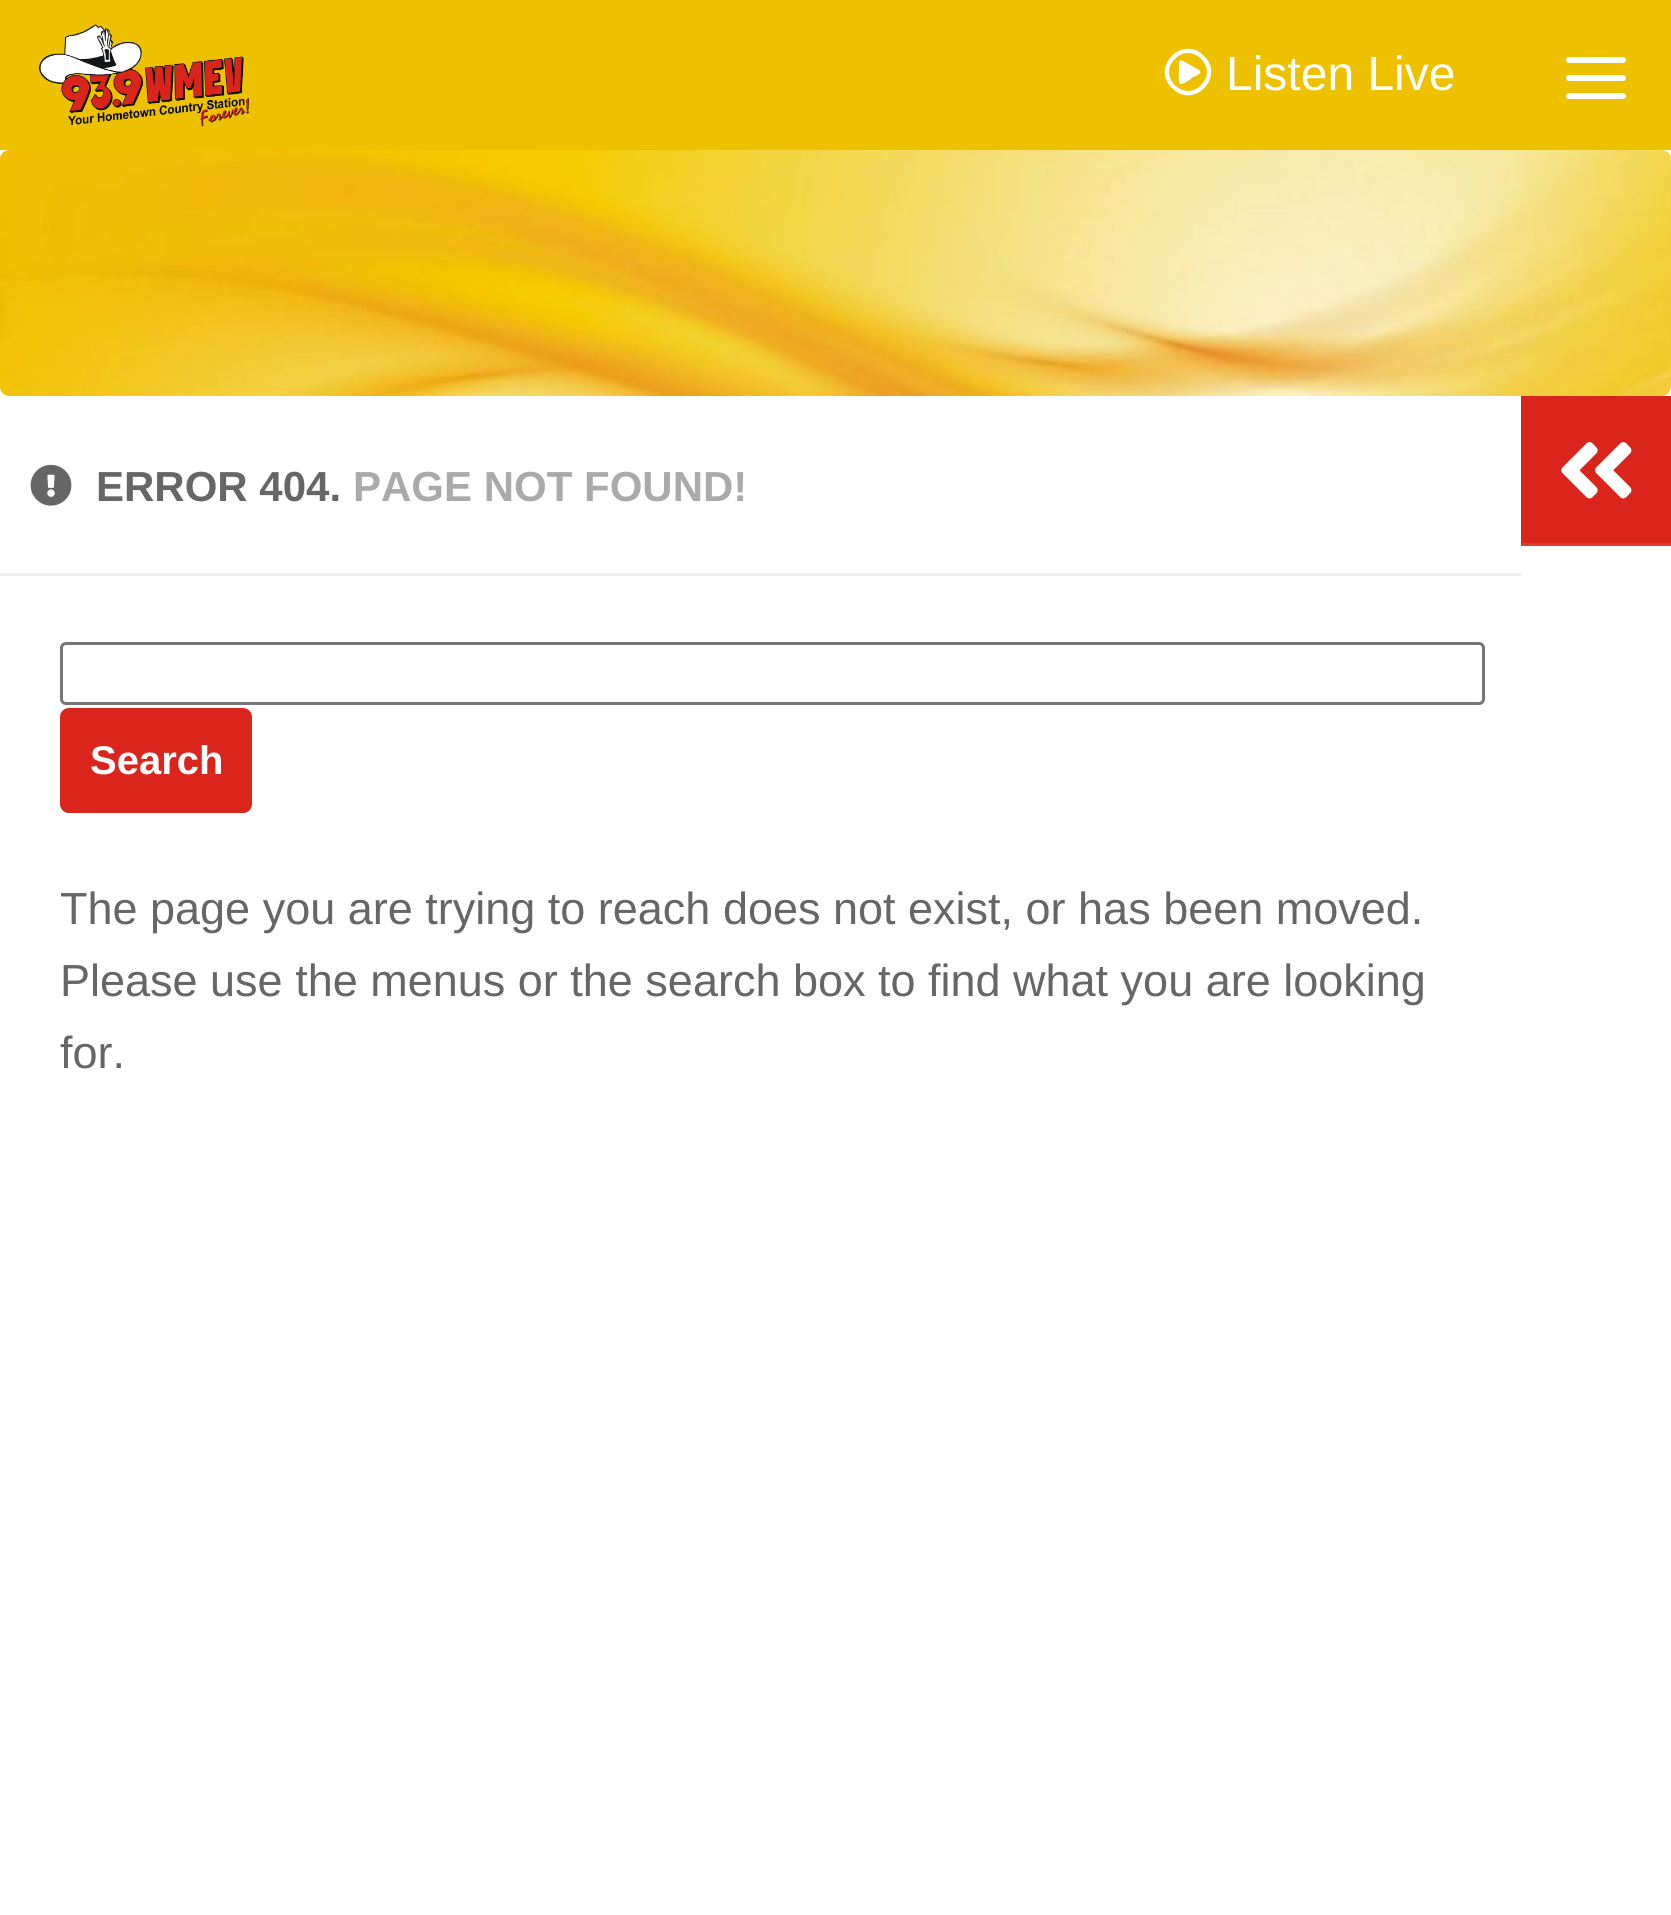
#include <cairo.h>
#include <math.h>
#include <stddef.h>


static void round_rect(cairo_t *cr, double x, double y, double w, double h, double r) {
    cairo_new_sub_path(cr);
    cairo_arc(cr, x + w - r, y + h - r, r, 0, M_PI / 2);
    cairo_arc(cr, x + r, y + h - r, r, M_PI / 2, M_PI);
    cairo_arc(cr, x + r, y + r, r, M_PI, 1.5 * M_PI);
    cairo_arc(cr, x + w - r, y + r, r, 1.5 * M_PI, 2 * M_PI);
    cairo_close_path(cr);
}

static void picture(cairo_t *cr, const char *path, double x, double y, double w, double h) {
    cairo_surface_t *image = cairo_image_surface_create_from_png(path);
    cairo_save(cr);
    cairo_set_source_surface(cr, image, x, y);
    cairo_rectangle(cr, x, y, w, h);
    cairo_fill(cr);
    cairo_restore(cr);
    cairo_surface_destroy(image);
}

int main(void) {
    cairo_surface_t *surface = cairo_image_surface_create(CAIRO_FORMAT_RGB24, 1671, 1915);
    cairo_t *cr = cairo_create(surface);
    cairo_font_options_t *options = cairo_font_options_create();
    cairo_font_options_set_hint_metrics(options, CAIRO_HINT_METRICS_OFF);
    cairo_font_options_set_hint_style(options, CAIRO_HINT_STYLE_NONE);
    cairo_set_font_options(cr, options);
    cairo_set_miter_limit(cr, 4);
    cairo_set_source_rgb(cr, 1, 1, 1);
    cairo_paint(cr);
    cairo_set_source_rgb(cr, 0.929, 0.757, 0);
    cairo_rectangle(cr, 0, 0, 1671, 150);
    cairo_fill(cr);
    picture(cr, "img1.png", 39, 24, 210, 103);
    cairo_set_source_rgb(cr, 1, 1, 1);
    cairo_new_path(cr);
    cairo_move_to(cr, 1199, 70);
    cairo_curve_to(cr, 1204, 73, 1194, 77, 1193, 77);
    cairo_curve_to(cr, 1191, 79, 1183, 85, 1180, 84);
    cairo_curve_to(cr, 1178, 82, 1179, 71, 1179, 69);
    cairo_curve_to(cr, 1179, 62, 1178, 58, 1185, 62);
    cairo_close_path(cr);
    cairo_move_to(cr, 1204, 56);
    cairo_curve_to(cr, 1226, 77, 1193, 110, 1172, 88);
    cairo_curve_to(cr, 1150, 67, 1183, 34, 1204, 56);
    cairo_close_path(cr);
    cairo_move_to(cr, 1175, 59);
    cairo_curve_to(cr, 1157, 76, 1184, 103, 1201, 85);
    cairo_curve_to(cr, 1219, 68, 1192, 41, 1175, 59);
    cairo_close_path(cr);
    cairo_fill(cr);
    cairo_select_font_face(cr, "Liberation Sans", CAIRO_FONT_SLANT_NORMAL, CAIRO_FONT_WEIGHT_NORMAL);
    cairo_set_font_size(cr, 48);
    cairo_move_to(cr, 1226, 90);
    cairo_show_text(cr, "Listen Live");
    round_rect(cr, 1566, 57, 60, 6, 3);
    cairo_fill(cr);
    round_rect(cr, 1566, 75, 60, 6, 3);
    cairo_fill(cr);
    round_rect(cr, 1566, 93, 60, 6, 3);
    cairo_fill(cr);
    picture(cr, "img2.png", 0, 150, 1671, 246);
    cairo_set_source_rgb(cr, 0.933, 0.933, 0.933);
    cairo_rectangle(cr, 0, 573, 1521, 3);
    cairo_fill(cr);
    picture(cr, "img3.png", 30, 464, 42, 42);
    cairo_select_font_face(cr, "Liberation Sans", CAIRO_FONT_SLANT_NORMAL, CAIRO_FONT_WEIGHT_BOLD);
    cairo_set_font_size(cr, 42);
    cairo_set_source_rgb(cr, 0.4, 0.4, 0.4);
    cairo_move_to(cr, 96, 501);
    cairo_show_text(cr, "ERROR 404.");
    cairo_set_source_rgb(cr, 0.667, 0.667, 0.667);
    cairo_move_to(cr, 353, 501);
    cairo_show_text(cr, "PAGE NOT FOUND!");
    round_rect(cr, 61.5, 643.5, 1422, 60, 4.5);
    cairo_set_source_rgb(cr, 0.463, 0.463, 0.463);
    cairo_set_line_width(cr, 3);
    cairo_stroke(cr);
    cairo_set_source_rgb(cr, 0.855, 0.145, 0.11);
    round_rect(cr, 60, 708, 192, 105, 9);
    cairo_fill(cr);
    cairo_set_font_size(cr, 40);
    cairo_set_source_rgb(cr, 1, 1, 1);
    cairo_move_to(cr, 90, 774);
    cairo_show_text(cr, "Search");
    cairo_select_font_face(cr, "Liberation Sans", CAIRO_FONT_SLANT_NORMAL, CAIRO_FONT_WEIGHT_NORMAL);
    cairo_set_font_size(cr, 45);
    cairo_set_source_rgb(cr, 0.4, 0.4, 0.4);
    cairo_move_to(cr, 60, 924);
    cairo_show_text(cr, "The page you are trying to reach does not exist, or has been moved.");
    cairo_move_to(cr, 60, 996);
    cairo_show_text(cr, "Please use the menus or the search box to find what you are looking");
    cairo_move_to(cr, 60, 1068);
    cairo_show_text(cr, "for.");
    cairo_set_source_rgb(cr, 0.855, 0.145, 0.11);
    cairo_rectangle(cr, 1521, 396, 150, 147);
    cairo_fill(cr);
    cairo_set_source_rgb(cr, 0.871, 0.231, 0.2);
    cairo_rectangle(cr, 1521, 543, 150, 3);
    cairo_fill(cr);
    picture(cr, "img4.png", 1561, 442, 71, 57);
    cairo_surface_write_to_png(surface, "page.png");
    cairo_font_options_destroy(options);
    cairo_destroy(cr);
    cairo_surface_destroy(surface);
    return 0;
}
